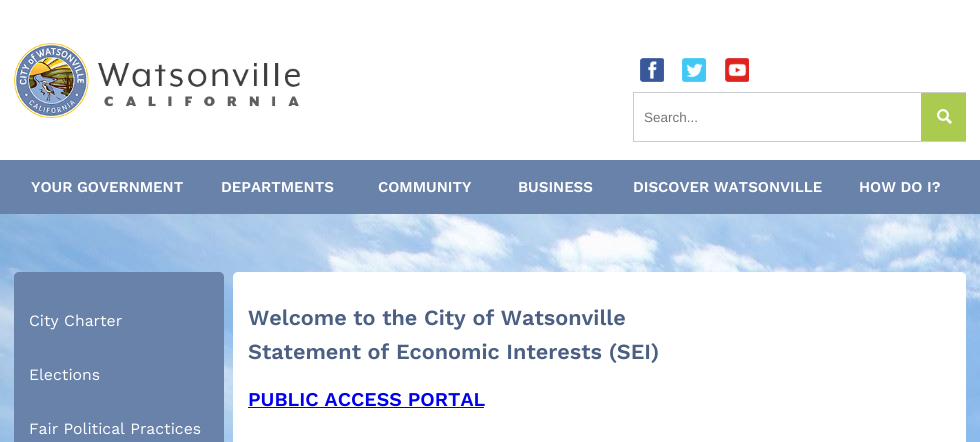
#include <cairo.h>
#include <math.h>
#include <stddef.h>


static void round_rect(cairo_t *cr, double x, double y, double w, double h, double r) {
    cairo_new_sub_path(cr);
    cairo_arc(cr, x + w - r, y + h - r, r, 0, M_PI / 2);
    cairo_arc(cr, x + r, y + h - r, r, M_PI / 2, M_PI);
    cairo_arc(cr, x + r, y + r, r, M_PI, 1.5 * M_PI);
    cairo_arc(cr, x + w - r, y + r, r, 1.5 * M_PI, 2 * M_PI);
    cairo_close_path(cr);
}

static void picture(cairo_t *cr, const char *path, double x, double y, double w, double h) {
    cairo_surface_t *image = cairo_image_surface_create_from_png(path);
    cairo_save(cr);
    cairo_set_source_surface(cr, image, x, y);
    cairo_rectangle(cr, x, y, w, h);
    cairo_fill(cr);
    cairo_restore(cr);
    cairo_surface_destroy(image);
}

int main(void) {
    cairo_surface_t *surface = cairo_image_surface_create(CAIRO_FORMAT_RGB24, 980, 442);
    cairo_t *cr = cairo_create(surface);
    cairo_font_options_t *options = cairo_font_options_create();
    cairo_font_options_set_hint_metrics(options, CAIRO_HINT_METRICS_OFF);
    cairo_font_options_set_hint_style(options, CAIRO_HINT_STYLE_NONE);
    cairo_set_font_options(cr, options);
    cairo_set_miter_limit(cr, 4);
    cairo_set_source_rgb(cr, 1, 1, 1);
    cairo_paint(cr);
    picture(cr, "img1.png", 14, 43, 286, 75);
    picture(cr, "img2.png", 640, 58, 24, 24);
    picture(cr, "img3.png", 682, 58, 24, 24);
    picture(cr, "img4.png", 725, 58, 24, 24);
    cairo_rectangle(cr, 633.5, 92.5, 332, 49);
    cairo_set_source_rgb(cr, 0.8, 0.8, 0.8);
    cairo_set_line_width(cr, 1);
    cairo_stroke(cr);
    cairo_select_font_face(cr, "Liberation Sans", CAIRO_FONT_SLANT_NORMAL, CAIRO_FONT_WEIGHT_NORMAL);
    cairo_set_font_size(cr, 13.5);
    cairo_set_source_rgb(cr, 0.459, 0.459, 0.459);
    cairo_move_to(cr, 644, 122);
    cairo_show_text(cr, "Search...");
    picture(cr, "img5.png", 921, 93, 45, 48);
    cairo_set_source_rgb(cr, 0.412, 0.51, 0.667);
    cairo_rectangle(cr, 0, 160, 980, 54);
    cairo_fill(cr);
    cairo_select_font_face(cr, "Work Sans SemiBold", CAIRO_FONT_SLANT_NORMAL, CAIRO_FONT_WEIGHT_NORMAL);
    cairo_set_font_size(cr, 15);
    cairo_set_source_rgb(cr, 1, 1, 1);
    cairo_move_to(cr, 31, 192);
    cairo_show_text(cr, "YOUR GOVERNMENT");
    cairo_move_to(cr, 221, 192);
    cairo_show_text(cr, "DEPARTMENTS");
    cairo_move_to(cr, 378, 192);
    cairo_show_text(cr, "COMMUNITY");
    cairo_move_to(cr, 518, 192);
    cairo_show_text(cr, "BUSINESS");
    cairo_move_to(cr, 633, 192);
    cairo_show_text(cr, "DISCOVER WATSONVILLE");
    cairo_move_to(cr, 859, 192);
    cairo_show_text(cr, "HOW DO I?");
    picture(cr, "img6.png", 0, 214, 980, 228);
    cairo_set_source_rgb(cr, 0.412, 0.51, 0.667);
    round_rect(cr, 14, 272, 210, 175, 5);
    cairo_fill(cr);
    cairo_select_font_face(cr, "Work Sans", CAIRO_FONT_SLANT_NORMAL, CAIRO_FONT_WEIGHT_NORMAL);
    cairo_set_font_size(cr, 15.75);
    cairo_set_source_rgb(cr, 1, 1, 1);
    cairo_move_to(cr, 29, 326);
    cairo_show_text(cr, "City Charter");
    cairo_move_to(cr, 29, 380);
    cairo_show_text(cr, "Elections");
    cairo_move_to(cr, 29, 434);
    cairo_show_text(cr, "Fair Political Practices");
    round_rect(cr, 233, 272, 733, 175, 5);
    cairo_fill(cr);
    cairo_select_font_face(cr, "Work Sans SemiBold", CAIRO_FONT_SLANT_NORMAL, CAIRO_FONT_WEIGHT_NORMAL);
    cairo_set_font_size(cr, 21.6);
    cairo_set_source_rgb(cr, 0.29, 0.373, 0.506);
    cairo_move_to(cr, 248, 325);
    cairo_show_text(cr, "Welcome to the City of Watsonville");
    cairo_move_to(cr, 248, 359);
    cairo_show_text(cr, "Statement of Economic Interests (SEI)");
    cairo_set_font_size(cr, 19.5);
    cairo_set_source_rgb(cr, 0, 0, 0.933);
    cairo_move_to(cr, 248, 406);
    cairo_show_text(cr, "PUBLIC ACCESS PORTAL");
    cairo_rectangle(cr, 248, 407, 236, 1);
    cairo_fill(cr);
    cairo_surface_write_to_png(surface, "page.png");
    cairo_font_options_destroy(options);
    cairo_destroy(cr);
    cairo_surface_destroy(surface);
    return 0;
}
